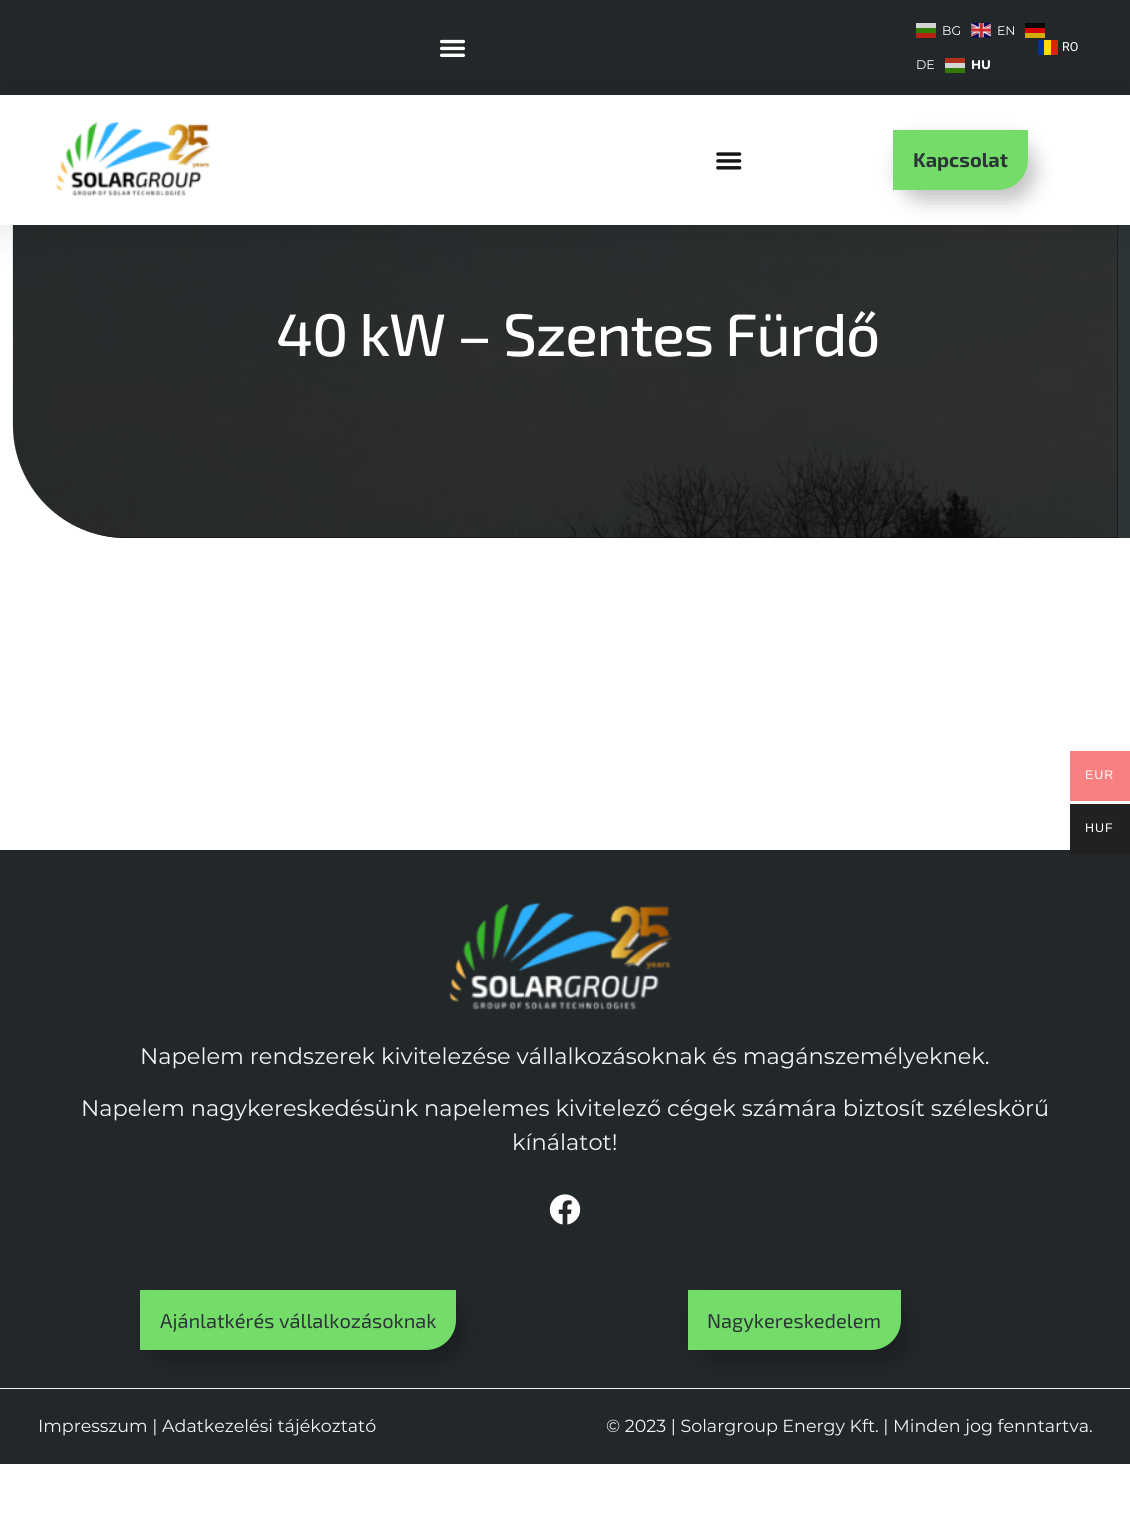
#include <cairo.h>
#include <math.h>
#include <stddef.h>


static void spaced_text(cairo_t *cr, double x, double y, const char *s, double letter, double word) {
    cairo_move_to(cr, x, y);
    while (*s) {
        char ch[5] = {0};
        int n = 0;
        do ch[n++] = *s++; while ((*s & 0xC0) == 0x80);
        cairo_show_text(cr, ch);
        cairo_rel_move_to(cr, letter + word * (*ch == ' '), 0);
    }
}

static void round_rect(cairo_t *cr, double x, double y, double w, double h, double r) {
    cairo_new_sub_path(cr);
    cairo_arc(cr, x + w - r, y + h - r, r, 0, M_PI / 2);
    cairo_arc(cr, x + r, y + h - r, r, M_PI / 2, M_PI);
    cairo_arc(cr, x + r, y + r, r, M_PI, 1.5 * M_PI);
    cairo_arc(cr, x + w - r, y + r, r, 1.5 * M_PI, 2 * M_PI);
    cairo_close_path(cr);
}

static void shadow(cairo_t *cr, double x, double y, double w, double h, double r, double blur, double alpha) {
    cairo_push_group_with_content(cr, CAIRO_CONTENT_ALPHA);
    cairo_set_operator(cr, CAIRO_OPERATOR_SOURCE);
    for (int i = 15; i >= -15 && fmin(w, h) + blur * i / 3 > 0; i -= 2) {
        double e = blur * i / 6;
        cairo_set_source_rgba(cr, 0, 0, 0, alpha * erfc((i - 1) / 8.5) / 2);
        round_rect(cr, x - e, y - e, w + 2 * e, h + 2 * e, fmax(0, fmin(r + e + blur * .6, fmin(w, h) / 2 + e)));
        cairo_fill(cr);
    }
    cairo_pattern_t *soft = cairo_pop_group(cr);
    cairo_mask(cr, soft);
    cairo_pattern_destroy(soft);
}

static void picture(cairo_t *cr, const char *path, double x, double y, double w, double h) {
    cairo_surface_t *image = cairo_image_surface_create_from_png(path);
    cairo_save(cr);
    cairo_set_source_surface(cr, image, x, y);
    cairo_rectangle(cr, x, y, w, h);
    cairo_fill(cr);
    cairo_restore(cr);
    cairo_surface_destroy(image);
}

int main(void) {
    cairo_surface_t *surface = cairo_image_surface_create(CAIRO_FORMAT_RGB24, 1130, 1538);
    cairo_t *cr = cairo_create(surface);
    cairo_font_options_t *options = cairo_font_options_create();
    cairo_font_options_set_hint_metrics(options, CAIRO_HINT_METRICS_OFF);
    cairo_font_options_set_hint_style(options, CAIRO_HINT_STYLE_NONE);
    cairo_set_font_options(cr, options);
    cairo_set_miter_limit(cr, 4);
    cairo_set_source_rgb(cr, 1, 1, 1);
    cairo_paint(cr);
    cairo_set_source_rgb(cr, 0.133, 0.153, 0.165);
    cairo_rectangle(cr, 0, 0, 1130, 95);
    cairo_fill(cr);
    picture(cr, "img1.png", 439, 39, 27, 18);
    cairo_select_font_face(cr, "Montserrat", CAIRO_FONT_SLANT_NORMAL, CAIRO_FONT_WEIGHT_NORMAL);
    cairo_set_font_size(cr, 12.5);
    cairo_set_source_rgb(cr, 1, 1, 1);
    cairo_move_to(cr, 942, 35);
    cairo_show_text(cr, "BG");
    cairo_set_source_rgb(cr, 0.722, 0.133, 0.082);
    cairo_rectangle(cr, 916, 33, 20, 5);
    cairo_fill(cr);
    cairo_set_source_rgb(cr, 0.827, 0.831, 0.831);
    cairo_rectangle(cr, 916, 23, 20, 5);
    cairo_fill(cr);
    cairo_set_source_rgb(cr, 0.18, 0.494, 0.031);
    cairo_rectangle(cr, 916, 28, 20, 5);
    cairo_fill(cr);
    picture(cr, "img2.png", 971, 23, 20, 15);
    cairo_set_source_rgb(cr, 1, 1, 1);
    cairo_move_to(cr, 997, 35);
    cairo_show_text(cr, "EN");
    cairo_move_to(cr, 916, 69);
    cairo_show_text(cr, "DE");
    cairo_set_source_rgb(cr, 0.827, 0.671, 0.031);
    cairo_rectangle(cr, 1025, 33, 20, 5);
    cairo_fill(cr);
    cairo_set_source_rgb(cr, 0.027, 0.031, 0.031);
    cairo_rectangle(cr, 1025, 23, 20, 5);
    cairo_fill(cr);
    cairo_set_source_rgb(cr, 0.827, 0.031, 0.031);
    cairo_rectangle(cr, 1025, 28, 20, 5);
    cairo_fill(cr);
    cairo_select_font_face(cr, "Montserrat", CAIRO_FONT_SLANT_NORMAL, CAIRO_FONT_WEIGHT_BOLD);
    cairo_set_source_rgb(cr, 1, 1, 1);
    cairo_move_to(cr, 971, 69);
    cairo_show_text(cr, "HU");
    cairo_set_source_rgb(cr, 0.827, 0.831, 0.831);
    cairo_rectangle(cr, 945, 63, 20, 5);
    cairo_fill(cr);
    cairo_set_source_rgb(cr, 0.204, 0.475, 0.031);
    cairo_rectangle(cr, 945, 68, 20, 5);
    cairo_fill(cr);
    cairo_set_source_rgb(cr, 0.69, 0.196, 0.102);
    cairo_rectangle(cr, 945, 58, 20, 5);
    cairo_fill(cr);
    cairo_set_source_rgb(cr, 0, 0.192, 0.612);
    cairo_rectangle(cr, 1038, 40, 6, 15);
    cairo_fill(cr);
    cairo_set_source_rgb(cr, 1, 0.871, 0);
    cairo_rectangle(cr, 1044, 40, 7, 15);
    cairo_fill(cr);
    cairo_set_source_rgb(cr, 0.871, 0.129, 0.063);
    cairo_rectangle(cr, 1051, 40, 7, 15);
    cairo_fill(cr);
    cairo_select_font_face(cr, "Roboto", CAIRO_FONT_SLANT_NORMAL, CAIRO_FONT_WEIGHT_NORMAL);
    cairo_set_source_rgb(cr, 1, 1, 1);
    cairo_move_to(cr, 1062, 51);
    cairo_show_text(cr, "RO");
    cairo_set_source_rgb(cr, 0.176, 0.204, 0.22);
    cairo_rectangle(cr, 1118, 225, 12, 313);
    cairo_fill(cr);
    cairo_new_path(cr);
    cairo_move_to(cr, 13, 225);
    cairo_line_to(cr, 1118, 225);
    cairo_line_to(cr, 1118, 538);
    cairo_line_to(cr, 126, 538);
    cairo_curve_to(cr, 63.5, 538, 13, 487.5, 13, 425);
    cairo_close_path(cr);
    cairo_fill(cr);
    picture(cr, "img5.png", 12, 225, 1106, 313);
    cairo_set_source_rgba(cr, 0, 0, 0, 0.8);
    cairo_new_path(cr);
    cairo_move_to(cr, 13, 225);
    cairo_line_to(cr, 1118, 225);
    cairo_line_to(cr, 1118, 538);
    cairo_line_to(cr, 126, 538);
    cairo_curve_to(cr, 63.5, 538, 13, 487.5, 13, 425);
    cairo_close_path(cr);
    cairo_fill(cr);
    cairo_save(cr);
    cairo_set_fill_rule(cr, CAIRO_FILL_RULE_EVEN_ODD);
    cairo_new_path(cr);
    cairo_move_to(cr, 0, 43);
    cairo_line_to(cr, 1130, 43);
    cairo_line_to(cr, 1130, 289);
    cairo_line_to(cr, 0, 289);
    cairo_close_path(cr);
    cairo_move_to(cr, 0, 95);
    cairo_line_to(cr, 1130, 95);
    cairo_line_to(cr, 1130, 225);
    cairo_line_to(cr, 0, 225);
    cairo_close_path(cr);
    cairo_clip(cr);
    cairo_set_source_rgb(cr, 0, 0, 0);
    shadow(cr, 0, 101, 1130, 130, 0, 19, 0.1);
    cairo_restore(cr);
    picture(cr, "img3.png", 56, 121, 155, 76);
    picture(cr, "img4.png", 716, 152, 26, 18);
    cairo_set_source_rgb(cr, 0, 0, 0);
    shadow(cr, 899, 140, 135, 60, 30, 10, 0.25);
    cairo_set_source_rgb(cr, 0.455, 0.867, 0.412);
    cairo_new_path(cr);
    cairo_move_to(cr, 893, 130);
    cairo_line_to(cr, 1028, 130);
    cairo_line_to(cr, 1028, 160);
    cairo_curve_to(cr, 1028, 176.5, 1014.5, 190, 998, 190);
    cairo_line_to(cr, 893, 190);
    cairo_close_path(cr);
    cairo_fill(cr);
    cairo_select_font_face(cr, "Exo 2", CAIRO_FONT_SLANT_NORMAL, CAIRO_FONT_WEIGHT_BOLD);
    cairo_set_font_size(cr, 20);
    cairo_set_source_rgb(cr, 0.176, 0.204, 0.22);
    cairo_move_to(cr, 913, 167);
    cairo_show_text(cr, "Kapcsolat");
    cairo_select_font_face(cr, "Exo 2 Medium", CAIRO_FONT_SLANT_NORMAL, CAIRO_FONT_WEIGHT_NORMAL);
    cairo_set_font_size(cr, 60);
    cairo_set_source_rgb(cr, 1, 1, 1);
    spaced_text(cr, 276, 356, "40 kW – Szentes Fürdő", -1.25, 0);
    cairo_set_source_rgb(cr, 0.969, 0.502, 0.502);
    cairo_rectangle(cr, 1070, 751, 60, 50);
    cairo_fill(cr);
    cairo_select_font_face(cr, "Liberation Sans", CAIRO_FONT_SLANT_NORMAL, CAIRO_FONT_WEIGHT_NORMAL);
    cairo_set_font_size(cr, 12.5);
    cairo_set_source_rgb(cr, 1, 1, 1);
    spaced_text(cr, 1085, 779, "EUR", 1, 0);
    cairo_set_source_rgb(cr, 0.133, 0.153, 0.165);
    cairo_rectangle(cr, 0, 850, 1130, 538);
    cairo_fill(cr);
    cairo_set_source_rgb(cr, 0.129, 0.129, 0.129);
    cairo_rectangle(cr, 1070, 804, 60, 50);
    cairo_fill(cr);
    cairo_set_source_rgb(cr, 1, 1, 1);
    spaced_text(cr, 1085, 832, "HUF", 1, 0);
    cairo_set_source_rgb(cr, 0.945, 0.949, 0.953);
    cairo_rectangle(cr, 0, 1388, 1130, 1);
    cairo_fill(cr);
    picture(cr, "img6.png", 448, 902, 225, 108);
    cairo_select_font_face(cr, "Montserrat", CAIRO_FONT_SLANT_NORMAL, CAIRO_FONT_WEIGHT_NORMAL);
    cairo_set_font_size(cr, 22.5);
    cairo_move_to(cr, 140, 1064);
    cairo_show_text(cr, "Napelem rendszerek kivitelezése vállalkozásoknak és magánszemélyeknek.");
    cairo_move_to(cr, 81, 1116);
    cairo_show_text(cr, "Napelem nagykereskedésünk napelemes kivitelező cégek számára biztosít széleskörű");
    cairo_move_to(cr, 512, 1150);
    cairo_show_text(cr, "kínálatot!");
    picture(cr, "img7.png", 549, 1194, 32, 31);
    cairo_set_source_rgb(cr, 0, 0, 0);
    shadow(cr, 146, 1300, 317, 60, 30, 10, 0.25);
    cairo_set_source_rgb(cr, 0.455, 0.867, 0.412);
    cairo_new_path(cr);
    cairo_move_to(cr, 140, 1290);
    cairo_line_to(cr, 456, 1290);
    cairo_line_to(cr, 456, 1320);
    cairo_curve_to(cr, 456, 1336.5, 442.5, 1350, 426, 1350);
    cairo_line_to(cr, 140, 1350);
    cairo_close_path(cr);
    cairo_fill(cr);
    cairo_select_font_face(cr, "Exo 2", CAIRO_FONT_SLANT_NORMAL, CAIRO_FONT_WEIGHT_NORMAL);
    cairo_set_font_size(cr, 20);
    cairo_set_source_rgb(cr, 0.176, 0.204, 0.22);
    cairo_move_to(cr, 160, 1328);
    cairo_show_text(cr, "Ajánlatkérés vállalkozásoknak");
    cairo_set_source_rgb(cr, 0, 0, 0);
    shadow(cr, 694, 1300, 214, 60, 30, 10, 0.25);
    cairo_set_source_rgb(cr, 0.455, 0.867, 0.412);
    cairo_new_path(cr);
    cairo_move_to(cr, 688, 1290);
    cairo_line_to(cr, 901, 1290);
    cairo_line_to(cr, 901, 1320);
    cairo_curve_to(cr, 901, 1336.5, 887.5, 1350, 871, 1350);
    cairo_line_to(cr, 688, 1350);
    cairo_close_path(cr);
    cairo_fill(cr);
    cairo_set_source_rgb(cr, 0.176, 0.204, 0.22);
    cairo_move_to(cr, 707, 1328);
    cairo_show_text(cr, "Nagykereskedelem");
    cairo_set_source_rgb(cr, 0.133, 0.153, 0.165);
    cairo_rectangle(cr, 0, 1389, 1130, 75);
    cairo_fill(cr);
    cairo_select_font_face(cr, "Montserrat", CAIRO_FONT_SLANT_NORMAL, CAIRO_FONT_WEIGHT_NORMAL);
    cairo_set_font_size(cr, 17.5);
    cairo_set_source_rgb(cr, 0.945, 0.949, 0.953);
    cairo_move_to(cr, 38, 1432);
    cairo_show_text(cr, "Impresszum | Adatkezelési tájékoztató");
    cairo_move_to(cr, 606, 1432);
    cairo_show_text(cr, "© 2023 | Solargroup Energy Kft. | Minden jog fenntartva.");
    cairo_surface_write_to_png(surface, "page.png");
    cairo_font_options_destroy(options);
    cairo_destroy(cr);
    cairo_surface_destroy(surface);
    return 0;
}
